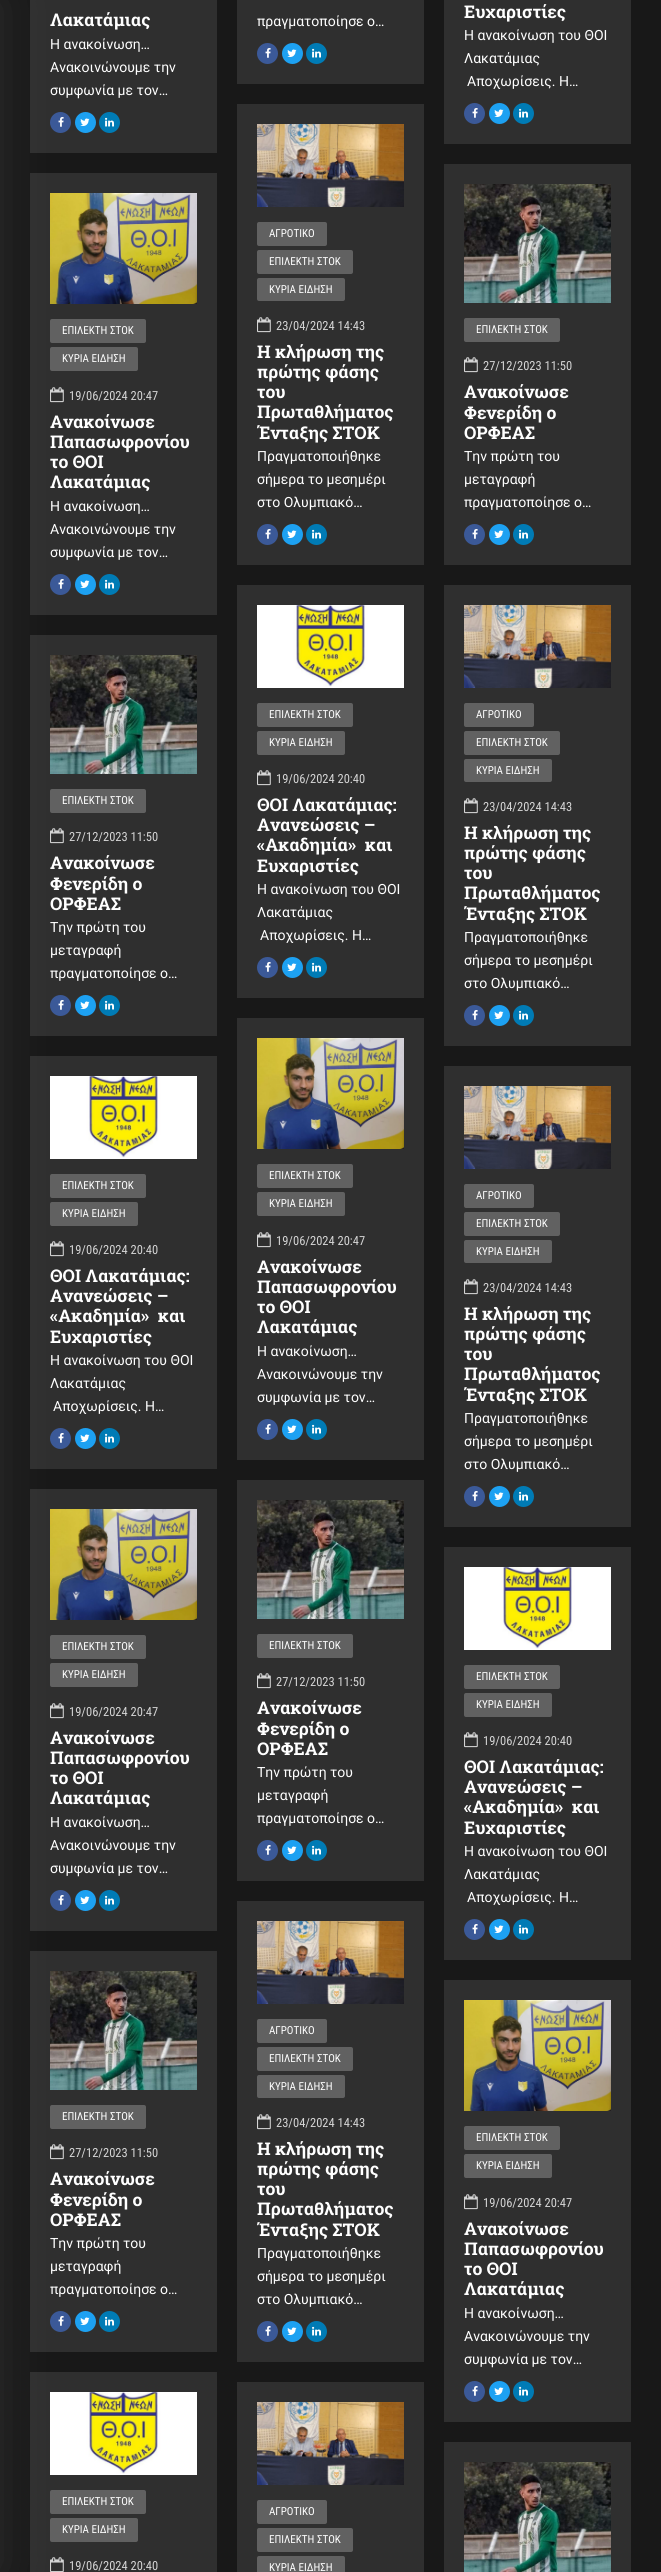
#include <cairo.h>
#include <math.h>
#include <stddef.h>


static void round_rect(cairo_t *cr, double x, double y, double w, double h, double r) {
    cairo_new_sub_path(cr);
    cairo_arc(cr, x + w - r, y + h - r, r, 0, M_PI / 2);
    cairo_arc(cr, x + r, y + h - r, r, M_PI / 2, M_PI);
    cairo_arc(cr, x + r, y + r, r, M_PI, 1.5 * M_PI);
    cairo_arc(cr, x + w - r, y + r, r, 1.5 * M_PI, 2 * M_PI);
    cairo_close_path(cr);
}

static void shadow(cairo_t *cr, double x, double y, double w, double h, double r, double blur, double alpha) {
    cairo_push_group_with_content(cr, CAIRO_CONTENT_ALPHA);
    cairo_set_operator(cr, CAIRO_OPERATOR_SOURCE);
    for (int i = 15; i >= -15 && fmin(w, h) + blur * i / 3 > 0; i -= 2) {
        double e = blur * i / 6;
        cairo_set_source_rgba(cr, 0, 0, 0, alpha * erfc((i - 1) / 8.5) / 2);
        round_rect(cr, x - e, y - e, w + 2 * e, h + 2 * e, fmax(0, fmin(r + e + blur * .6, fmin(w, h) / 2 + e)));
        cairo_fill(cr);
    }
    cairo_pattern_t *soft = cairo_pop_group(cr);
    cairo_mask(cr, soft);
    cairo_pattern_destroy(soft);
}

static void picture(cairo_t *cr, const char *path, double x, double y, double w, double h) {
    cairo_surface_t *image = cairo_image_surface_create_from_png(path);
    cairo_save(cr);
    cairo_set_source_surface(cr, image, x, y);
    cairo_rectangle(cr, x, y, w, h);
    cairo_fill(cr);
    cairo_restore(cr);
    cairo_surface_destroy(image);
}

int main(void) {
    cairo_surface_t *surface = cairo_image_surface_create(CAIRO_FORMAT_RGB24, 661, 2572);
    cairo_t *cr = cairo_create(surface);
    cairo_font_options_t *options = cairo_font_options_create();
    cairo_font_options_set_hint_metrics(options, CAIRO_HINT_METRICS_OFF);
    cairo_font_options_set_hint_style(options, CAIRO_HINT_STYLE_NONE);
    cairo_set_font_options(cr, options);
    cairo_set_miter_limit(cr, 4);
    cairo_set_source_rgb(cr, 0.094, 0.094, 0.094);
    cairo_paint(cr);
    cairo_set_source_rgb(cr, 0.184, 0.184, 0.184);
    cairo_rectangle(cr, 30, 0, 187, 153);
    cairo_fill(cr);
    cairo_set_source_rgb(cr, 0.231, 0.349, 0.596);
    cairo_arc(cr, 60.5, 122.5, 10.5, 0, 2 * M_PI);
    cairo_fill(cr);
    picture(cr, "img1.png", 58, 117, 6, 10);
    cairo_set_source_rgb(cr, 0.114, 0.631, 0.949);
    cairo_arc(cr, 85.5, 122.5, 10.5, 0, 2 * M_PI);
    cairo_fill(cr);
    cairo_set_source_rgb(cr, 0.184, 0.184, 0.184);
    cairo_rectangle(cr, 30, 173, 187, 442);
    cairo_fill(cr);
    picture(cr, "img4.png", 50, 193, 147, 111);
    cairo_set_source_rgb(cr, 0.38, 0.38, 0.38);
    round_rect(cr, 50, 319, 96, 24, 2);
    cairo_fill(cr);
    round_rect(cr, 50, 347, 88, 24, 2);
    cairo_fill(cr);
    picture(cr, "img5.png", 50, 387, 14, 16);
    cairo_set_source_rgb(cr, 0.231, 0.349, 0.596);
    cairo_arc(cr, 60.5, 584.5, 10.5, 0, 2 * M_PI);
    cairo_fill(cr);
    picture(cr, "img1.png", 58, 579, 6, 10);
    cairo_set_source_rgb(cr, 0.114, 0.631, 0.949);
    cairo_arc(cr, 85.5, 584.5, 10.5, 0, 2 * M_PI);
    cairo_fill(cr);
    cairo_set_source_rgb(cr, 0.184, 0.184, 0.184);
    cairo_rectangle(cr, 30, 635, 187, 401);
    cairo_fill(cr);
    picture(cr, "img8.png", 50, 655, 147, 119);
    cairo_set_source_rgb(cr, 0.38, 0.38, 0.38);
    round_rect(cr, 50, 789, 96, 24, 2);
    cairo_fill(cr);
    picture(cr, "img5.png", 50, 828, 14, 16);
    cairo_set_source_rgb(cr, 0.231, 0.349, 0.596);
    cairo_arc(cr, 60.5, 1005.5, 10.5, 0, 2 * M_PI);
    cairo_fill(cr);
    picture(cr, "img1.png", 58, 1000, 6, 10);
    cairo_set_source_rgb(cr, 0.114, 0.631, 0.949);
    cairo_arc(cr, 85.5, 1005.5, 10.5, 0, 2 * M_PI);
    cairo_fill(cr);
    cairo_set_source_rgb(cr, 0.184, 0.184, 0.184);
    cairo_rectangle(cr, 30, 1056, 187, 413);
    cairo_fill(cr);
    picture(cr, "img9.png", 50, 1076, 147, 83);
    cairo_set_source_rgb(cr, 0.38, 0.38, 0.38);
    round_rect(cr, 50, 1174, 96, 24, 2);
    cairo_fill(cr);
    round_rect(cr, 50, 1202, 88, 24, 2);
    cairo_fill(cr);
    picture(cr, "img5.png", 50, 1241, 14, 16);
    cairo_set_source_rgb(cr, 0.231, 0.349, 0.596);
    cairo_arc(cr, 60.5, 1438.5, 10.5, 0, 2 * M_PI);
    cairo_fill(cr);
    picture(cr, "img1.png", 58, 1433, 6, 10);
    cairo_set_source_rgb(cr, 0.114, 0.631, 0.949);
    cairo_arc(cr, 85.5, 1438.5, 10.5, 0, 2 * M_PI);
    cairo_fill(cr);
    cairo_set_source_rgb(cr, 0.184, 0.184, 0.184);
    cairo_rectangle(cr, 30, 1489, 187, 442);
    cairo_fill(cr);
    picture(cr, "img10.png", 50, 1509, 147, 111);
    cairo_set_source_rgb(cr, 0.38, 0.38, 0.38);
    round_rect(cr, 50, 1635, 96, 24, 2);
    cairo_fill(cr);
    round_rect(cr, 50, 1663, 88, 24, 2);
    cairo_fill(cr);
    picture(cr, "img5.png", 50, 1703, 14, 16);
    cairo_set_source_rgb(cr, 0.231, 0.349, 0.596);
    cairo_arc(cr, 60.5, 1900.5, 10.5, 0, 2 * M_PI);
    cairo_fill(cr);
    picture(cr, "img1.png", 58, 1895, 6, 10);
    cairo_set_source_rgb(cr, 0.114, 0.631, 0.949);
    cairo_arc(cr, 85.5, 1900.5, 10.5, 0, 2 * M_PI);
    cairo_fill(cr);
    cairo_set_source_rgb(cr, 0.184, 0.184, 0.184);
    cairo_rectangle(cr, 30, 1951, 187, 401);
    cairo_fill(cr);
    picture(cr, "img12.png", 50, 1971, 147, 119);
    cairo_set_source_rgb(cr, 0.38, 0.38, 0.38);
    round_rect(cr, 50, 2105, 96, 24, 2);
    cairo_fill(cr);
    picture(cr, "img5.png", 50, 2144, 14, 16);
    cairo_set_source_rgb(cr, 0.231, 0.349, 0.596);
    cairo_arc(cr, 60.5, 2321.5, 10.5, 0, 2 * M_PI);
    cairo_fill(cr);
    picture(cr, "img1.png", 58, 2316, 6, 10);
    cairo_set_source_rgb(cr, 0.114, 0.631, 0.949);
    cairo_arc(cr, 85.5, 2321.5, 10.5, 0, 2 * M_PI);
    cairo_fill(cr);
    cairo_set_source_rgb(cr, 0.184, 0.184, 0.184);
    cairo_rectangle(cr, 30, 2372, 187, 200);
    cairo_fill(cr);
    picture(cr, "img9.png", 50, 2392, 147, 83);
    cairo_set_source_rgb(cr, 0.38, 0.38, 0.38);
    round_rect(cr, 50, 2490, 96, 24, 2);
    cairo_fill(cr);
    round_rect(cr, 50, 2518, 88, 24, 2);
    cairo_fill(cr);
    picture(cr, "img13.png", 50, 2557, 14, 15);
    cairo_set_source_rgb(cr, 1, 1, 1);
    shadow(cr, -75, 0, 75, 2572, 0, 25, 0.1);
    cairo_select_font_face(cr, "Roboto Slab", CAIRO_FONT_SLANT_NORMAL, CAIRO_FONT_WEIGHT_BOLD);
    cairo_set_font_size(cr, 17.5);
    cairo_set_source_rgb(cr, 1, 1, 1);
    cairo_move_to(cr, 50, 26);
    cairo_show_text(cr, "Λακατάμιας");
    cairo_select_font_face(cr, "Roboto", CAIRO_FONT_SLANT_NORMAL, CAIRO_FONT_WEIGHT_NORMAL);
    cairo_set_font_size(cr, 14);
    cairo_move_to(cr, 50, 49);
    cairo_show_text(cr, "Η ανακοίνωση…");
    cairo_move_to(cr, 50, 72);
    cairo_show_text(cr, "Ανακοινώνουμε την");
    cairo_move_to(cr, 50, 95);
    cairo_show_text(cr, "συμφωνία με τον…");
    picture(cr, "img2.png", 80, 118, 10, 8);
    cairo_set_source_rgb(cr, 0, 0.482, 0.71);
    cairo_arc(cr, 109.5, 122.5, 10.5, 0, 2 * M_PI);
    cairo_fill(cr);
    picture(cr, "img3.png", 105, 117, 9, 10);
    cairo_set_source_rgb(cr, 0.184, 0.184, 0.184);
    cairo_rectangle(cr, 237, 0, 187, 84);
    cairo_fill(cr);
    cairo_set_source_rgb(cr, 1, 1, 1);
    cairo_move_to(cr, 257, 26);
    cairo_show_text(cr, "πραγματοποίησε ο…");
    cairo_set_source_rgb(cr, 0.231, 0.349, 0.596);
    cairo_new_path(cr);
    cairo_arc(cr, 267.5, 53.5, 10.5, 0, 2 * M_PI);
    cairo_fill(cr);
    picture(cr, "img1.png", 265, 48, 6, 10);
    cairo_set_source_rgb(cr, 0.114, 0.631, 0.949);
    cairo_arc(cr, 292.5, 53.5, 10.5, 0, 2 * M_PI);
    cairo_fill(cr);
    picture(cr, "img2.png", 287, 49, 10, 8);
    cairo_set_source_rgb(cr, 0, 0.482, 0.71);
    cairo_arc(cr, 316.5, 53.5, 10.5, 0, 2 * M_PI);
    cairo_fill(cr);
    picture(cr, "img3.png", 312, 48, 9, 10);
    cairo_set_source_rgb(cr, 0.184, 0.184, 0.184);
    cairo_rectangle(cr, 444, 0, 187, 144);
    cairo_fill(cr);
    cairo_select_font_face(cr, "Roboto Slab", CAIRO_FONT_SLANT_NORMAL, CAIRO_FONT_WEIGHT_BOLD);
    cairo_set_font_size(cr, 17.5);
    cairo_set_source_rgb(cr, 1, 1, 1);
    cairo_move_to(cr, 464, 18);
    cairo_show_text(cr, "Ευχαριστίες");
    cairo_select_font_face(cr, "Roboto", CAIRO_FONT_SLANT_NORMAL, CAIRO_FONT_WEIGHT_NORMAL);
    cairo_set_font_size(cr, 14);
    cairo_move_to(cr, 464, 40);
    cairo_show_text(cr, "Η ανακοίνωση του ΘΟΙ");
    cairo_move_to(cr, 464, 63);
    cairo_show_text(cr, "Λακατάμιας");
    cairo_move_to(cr, 467, 86);
    cairo_show_text(cr, "Αποχωρίσεις. Η…");
    cairo_set_source_rgb(cr, 0.231, 0.349, 0.596);
    cairo_new_path(cr);
    cairo_arc(cr, 474.5, 113.5, 10.5, 0, 2 * M_PI);
    cairo_fill(cr);
    picture(cr, "img1.png", 472, 108, 6, 10);
    cairo_set_source_rgb(cr, 0.114, 0.631, 0.949);
    cairo_arc(cr, 499.5, 113.5, 10.5, 0, 2 * M_PI);
    cairo_fill(cr);
    picture(cr, "img2.png", 494, 109, 10, 8);
    cairo_set_source_rgb(cr, 0, 0.482, 0.71);
    cairo_arc(cr, 523.5, 113.5, 10.5, 0, 2 * M_PI);
    cairo_fill(cr);
    picture(cr, "img3.png", 519, 108, 9, 10);
    cairo_select_font_face(cr, "Roboto Condensed", CAIRO_FONT_SLANT_NORMAL, CAIRO_FONT_WEIGHT_NORMAL);
    cairo_set_font_size(cr, 11);
    cairo_set_source_rgb(cr, 1, 1, 1);
    cairo_move_to(cr, 62, 334);
    cairo_show_text(cr, "ΕΠΙΛΕΚΤΗ ΣΤΟΚ");
    cairo_move_to(cr, 62, 362);
    cairo_show_text(cr, "ΚΥΡΙΑ ΕΙΔΗΣΗ");
    cairo_set_font_size(cr, 12.5);
    cairo_set_source_rgb(cr, 0.835, 0.835, 0.835);
    cairo_move_to(cr, 69, 400);
    cairo_show_text(cr, "19/06/2024 20:47");
    cairo_select_font_face(cr, "Roboto Slab", CAIRO_FONT_SLANT_NORMAL, CAIRO_FONT_WEIGHT_BOLD);
    cairo_set_font_size(cr, 17.5);
    cairo_set_source_rgb(cr, 1, 1, 1);
    cairo_move_to(cr, 50, 428);
    cairo_show_text(cr, "Ανακοίνωσε");
    cairo_move_to(cr, 50, 448);
    cairo_show_text(cr, "Παπασωφρονίου");
    cairo_move_to(cr, 50, 468);
    cairo_show_text(cr, "το ΘΟΙ");
    cairo_move_to(cr, 50, 488);
    cairo_show_text(cr, "Λακατάμιας");
    cairo_select_font_face(cr, "Roboto", CAIRO_FONT_SLANT_NORMAL, CAIRO_FONT_WEIGHT_NORMAL);
    cairo_set_font_size(cr, 14);
    cairo_move_to(cr, 50, 511);
    cairo_show_text(cr, "Η ανακοίνωση…");
    cairo_move_to(cr, 50, 534);
    cairo_show_text(cr, "Ανακοινώνουμε την");
    cairo_move_to(cr, 50, 557);
    cairo_show_text(cr, "συμφωνία με τον…");
    picture(cr, "img2.png", 80, 580, 10, 8);
    cairo_set_source_rgb(cr, 0, 0.482, 0.71);
    cairo_arc(cr, 109.5, 584.5, 10.5, 0, 2 * M_PI);
    cairo_fill(cr);
    picture(cr, "img3.png", 105, 579, 9, 10);
    cairo_set_source_rgb(cr, 0.184, 0.184, 0.184);
    cairo_rectangle(cr, 237, 104, 187, 461);
    cairo_fill(cr);
    picture(cr, "img6.png", 257, 124, 147, 83);
    cairo_set_source_rgb(cr, 0.38, 0.38, 0.38);
    round_rect(cr, 257, 222, 70, 24, 2);
    cairo_fill(cr);
    cairo_select_font_face(cr, "Roboto Condensed", CAIRO_FONT_SLANT_NORMAL, CAIRO_FONT_WEIGHT_NORMAL);
    cairo_set_font_size(cr, 11);
    cairo_set_source_rgb(cr, 1, 1, 1);
    cairo_move_to(cr, 269, 237);
    cairo_show_text(cr, "ΑΓΡΟΤΙΚΟ");
    cairo_set_source_rgb(cr, 0.38, 0.38, 0.38);
    round_rect(cr, 257, 250, 96, 24, 2);
    cairo_fill(cr);
    cairo_set_source_rgb(cr, 1, 1, 1);
    cairo_move_to(cr, 269, 265);
    cairo_show_text(cr, "ΕΠΙΛΕΚΤΗ ΣΤΟΚ");
    cairo_set_source_rgb(cr, 0.38, 0.38, 0.38);
    round_rect(cr, 257, 278, 88, 23, 2);
    cairo_fill(cr);
    cairo_set_source_rgb(cr, 1, 1, 1);
    cairo_move_to(cr, 269, 293);
    cairo_show_text(cr, "ΚΥΡΙΑ ΕΙΔΗΣΗ");
    picture(cr, "img5.png", 257, 317, 14, 16);
    cairo_set_font_size(cr, 12.5);
    cairo_set_source_rgb(cr, 0.835, 0.835, 0.835);
    cairo_move_to(cr, 276, 330);
    cairo_show_text(cr, "23/04/2024 14:43");
    cairo_select_font_face(cr, "Roboto Slab", CAIRO_FONT_SLANT_NORMAL, CAIRO_FONT_WEIGHT_BOLD);
    cairo_set_font_size(cr, 17.5);
    cairo_set_source_rgb(cr, 1, 1, 1);
    cairo_move_to(cr, 257, 358);
    cairo_show_text(cr, "Η κλήρωση της");
    cairo_move_to(cr, 257, 378);
    cairo_show_text(cr, "πρώτης φάσης");
    cairo_move_to(cr, 257, 398);
    cairo_show_text(cr, "του");
    cairo_move_to(cr, 257, 418);
    cairo_show_text(cr, "Πρωταθλήματος");
    cairo_move_to(cr, 257, 439);
    cairo_show_text(cr, "Ένταξης ΣΤΟΚ");
    cairo_select_font_face(cr, "Roboto", CAIRO_FONT_SLANT_NORMAL, CAIRO_FONT_WEIGHT_NORMAL);
    cairo_set_font_size(cr, 14);
    cairo_move_to(cr, 257, 461);
    cairo_show_text(cr, "Πραγματοποιήθηκε");
    cairo_move_to(cr, 257, 484);
    cairo_show_text(cr, "σήμερα το μεσημέρι");
    cairo_move_to(cr, 257, 507);
    cairo_show_text(cr, "στο Ολυμπιακό…");
    cairo_set_source_rgb(cr, 0.231, 0.349, 0.596);
    cairo_new_path(cr);
    cairo_arc(cr, 267.5, 534.5, 10.5, 0, 2 * M_PI);
    cairo_fill(cr);
    picture(cr, "img1.png", 265, 529, 6, 10);
    cairo_set_source_rgb(cr, 0.114, 0.631, 0.949);
    cairo_arc(cr, 292.5, 534.5, 10.5, 0, 2 * M_PI);
    cairo_fill(cr);
    picture(cr, "img2.png", 287, 530, 10, 8);
    cairo_set_source_rgb(cr, 0, 0.482, 0.71);
    cairo_arc(cr, 316.5, 534.5, 10.5, 0, 2 * M_PI);
    cairo_fill(cr);
    picture(cr, "img3.png", 312, 529, 9, 10);
    cairo_set_source_rgb(cr, 0.184, 0.184, 0.184);
    cairo_rectangle(cr, 444, 164, 187, 401);
    cairo_fill(cr);
    picture(cr, "img7.png", 464, 184, 147, 119);
    cairo_set_source_rgb(cr, 0.38, 0.38, 0.38);
    round_rect(cr, 464, 318, 96, 24, 2);
    cairo_fill(cr);
    cairo_select_font_face(cr, "Roboto Condensed", CAIRO_FONT_SLANT_NORMAL, CAIRO_FONT_WEIGHT_NORMAL);
    cairo_set_font_size(cr, 11);
    cairo_set_source_rgb(cr, 1, 1, 1);
    cairo_move_to(cr, 476, 333);
    cairo_show_text(cr, "ΕΠΙΛΕΚΤΗ ΣΤΟΚ");
    picture(cr, "img5.png", 464, 357, 14, 16);
    cairo_set_font_size(cr, 12.5);
    cairo_set_source_rgb(cr, 0.835, 0.835, 0.835);
    cairo_move_to(cr, 483, 370);
    cairo_show_text(cr, "27/12/2023 11:50");
    cairo_select_font_face(cr, "Roboto Slab", CAIRO_FONT_SLANT_NORMAL, CAIRO_FONT_WEIGHT_BOLD);
    cairo_set_font_size(cr, 17.5);
    cairo_set_source_rgb(cr, 1, 1, 1);
    cairo_move_to(cr, 464, 398);
    cairo_show_text(cr, "Ανακοίνωσε");
    cairo_move_to(cr, 464, 419);
    cairo_show_text(cr, "Φενερίδη ο");
    cairo_move_to(cr, 464, 439);
    cairo_show_text(cr, "ΟΡΦΕΑΣ");
    cairo_select_font_face(cr, "Roboto", CAIRO_FONT_SLANT_NORMAL, CAIRO_FONT_WEIGHT_NORMAL);
    cairo_set_font_size(cr, 14);
    cairo_move_to(cr, 464, 461);
    cairo_show_text(cr, "Την πρώτη του");
    cairo_move_to(cr, 464, 484);
    cairo_show_text(cr, "μεταγραφή");
    cairo_move_to(cr, 464, 507);
    cairo_show_text(cr, "πραγματοποίησε ο…");
    cairo_set_source_rgb(cr, 0.231, 0.349, 0.596);
    cairo_new_path(cr);
    cairo_arc(cr, 474.5, 534.5, 10.5, 0, 2 * M_PI);
    cairo_fill(cr);
    picture(cr, "img1.png", 472, 529, 6, 10);
    cairo_set_source_rgb(cr, 0.114, 0.631, 0.949);
    cairo_arc(cr, 499.5, 534.5, 10.5, 0, 2 * M_PI);
    cairo_fill(cr);
    picture(cr, "img2.png", 494, 530, 10, 8);
    cairo_set_source_rgb(cr, 0, 0.482, 0.71);
    cairo_arc(cr, 523.5, 534.5, 10.5, 0, 2 * M_PI);
    cairo_fill(cr);
    picture(cr, "img3.png", 519, 529, 9, 10);
    cairo_select_font_face(cr, "Roboto Condensed", CAIRO_FONT_SLANT_NORMAL, CAIRO_FONT_WEIGHT_NORMAL);
    cairo_set_font_size(cr, 11);
    cairo_set_source_rgb(cr, 1, 1, 1);
    cairo_move_to(cr, 62, 804);
    cairo_show_text(cr, "ΕΠΙΛΕΚΤΗ ΣΤΟΚ");
    cairo_set_font_size(cr, 12.5);
    cairo_set_source_rgb(cr, 0.835, 0.835, 0.835);
    cairo_move_to(cr, 69, 841);
    cairo_show_text(cr, "27/12/2023 11:50");
    cairo_select_font_face(cr, "Roboto Slab", CAIRO_FONT_SLANT_NORMAL, CAIRO_FONT_WEIGHT_BOLD);
    cairo_set_font_size(cr, 17.5);
    cairo_set_source_rgb(cr, 1, 1, 1);
    cairo_move_to(cr, 50, 869);
    cairo_show_text(cr, "Ανακοίνωσε");
    cairo_move_to(cr, 50, 890);
    cairo_show_text(cr, "Φενερίδη ο");
    cairo_move_to(cr, 50, 910);
    cairo_show_text(cr, "ΟΡΦΕΑΣ");
    cairo_select_font_face(cr, "Roboto", CAIRO_FONT_SLANT_NORMAL, CAIRO_FONT_WEIGHT_NORMAL);
    cairo_set_font_size(cr, 14);
    cairo_move_to(cr, 50, 932);
    cairo_show_text(cr, "Την πρώτη του");
    cairo_move_to(cr, 50, 955);
    cairo_show_text(cr, "μεταγραφή");
    cairo_move_to(cr, 50, 978);
    cairo_show_text(cr, "πραγματοποίησε ο…");
    picture(cr, "img2.png", 80, 1001, 10, 8);
    cairo_set_source_rgb(cr, 0, 0.482, 0.71);
    cairo_arc(cr, 109.5, 1005.5, 10.5, 0, 2 * M_PI);
    cairo_fill(cr);
    picture(cr, "img3.png", 105, 1000, 9, 10);
    cairo_set_source_rgb(cr, 0.184, 0.184, 0.184);
    cairo_rectangle(cr, 237, 585, 187, 413);
    cairo_fill(cr);
    picture(cr, "img9.png", 257, 605, 147, 83);
    cairo_set_source_rgb(cr, 0.38, 0.38, 0.38);
    round_rect(cr, 257, 703, 96, 24, 2);
    cairo_fill(cr);
    cairo_select_font_face(cr, "Roboto Condensed", CAIRO_FONT_SLANT_NORMAL, CAIRO_FONT_WEIGHT_NORMAL);
    cairo_set_font_size(cr, 11);
    cairo_set_source_rgb(cr, 1, 1, 1);
    cairo_move_to(cr, 269, 718);
    cairo_show_text(cr, "ΕΠΙΛΕΚΤΗ ΣΤΟΚ");
    cairo_set_source_rgb(cr, 0.38, 0.38, 0.38);
    round_rect(cr, 257, 731, 88, 24, 2);
    cairo_fill(cr);
    cairo_set_source_rgb(cr, 1, 1, 1);
    cairo_move_to(cr, 269, 746);
    cairo_show_text(cr, "ΚΥΡΙΑ ΕΙΔΗΣΗ");
    picture(cr, "img5.png", 257, 770, 14, 16);
    cairo_set_font_size(cr, 12.5);
    cairo_set_source_rgb(cr, 0.835, 0.835, 0.835);
    cairo_move_to(cr, 276, 783);
    cairo_show_text(cr, "19/06/2024 20:40");
    cairo_select_font_face(cr, "Roboto Slab", CAIRO_FONT_SLANT_NORMAL, CAIRO_FONT_WEIGHT_BOLD);
    cairo_set_font_size(cr, 17.5);
    cairo_set_source_rgb(cr, 1, 1, 1);
    cairo_move_to(cr, 257, 811);
    cairo_show_text(cr, "ΘΟΙ Λακατάμιας:");
    cairo_move_to(cr, 257, 831);
    cairo_show_text(cr, "Ανανεώσεις –");
    cairo_move_to(cr, 257, 851);
    cairo_show_text(cr, "«Ακαδημία»  και");
    cairo_move_to(cr, 257, 872);
    cairo_show_text(cr, "Ευχαριστίες");
    cairo_select_font_face(cr, "Roboto", CAIRO_FONT_SLANT_NORMAL, CAIRO_FONT_WEIGHT_NORMAL);
    cairo_set_font_size(cr, 14);
    cairo_move_to(cr, 257, 894);
    cairo_show_text(cr, "Η ανακοίνωση του ΘΟΙ");
    cairo_move_to(cr, 257, 917);
    cairo_show_text(cr, "Λακατάμιας");
    cairo_move_to(cr, 260, 940);
    cairo_show_text(cr, "Αποχωρίσεις. Η…");
    cairo_set_source_rgb(cr, 0.231, 0.349, 0.596);
    cairo_new_path(cr);
    cairo_arc(cr, 267.5, 967.5, 10.5, 0, 2 * M_PI);
    cairo_fill(cr);
    picture(cr, "img1.png", 265, 962, 6, 10);
    cairo_set_source_rgb(cr, 0.114, 0.631, 0.949);
    cairo_arc(cr, 292.5, 967.5, 10.5, 0, 2 * M_PI);
    cairo_fill(cr);
    picture(cr, "img2.png", 287, 963, 10, 8);
    cairo_set_source_rgb(cr, 0, 0.482, 0.71);
    cairo_arc(cr, 316.5, 967.5, 10.5, 0, 2 * M_PI);
    cairo_fill(cr);
    picture(cr, "img3.png", 312, 962, 9, 10);
    cairo_set_source_rgb(cr, 0.184, 0.184, 0.184);
    cairo_rectangle(cr, 444, 585, 187, 461);
    cairo_fill(cr);
    picture(cr, "img6.png", 464, 605, 147, 83);
    cairo_set_source_rgb(cr, 0.38, 0.38, 0.38);
    round_rect(cr, 464, 703, 70, 24, 2);
    cairo_fill(cr);
    cairo_select_font_face(cr, "Roboto Condensed", CAIRO_FONT_SLANT_NORMAL, CAIRO_FONT_WEIGHT_NORMAL);
    cairo_set_font_size(cr, 11);
    cairo_set_source_rgb(cr, 1, 1, 1);
    cairo_move_to(cr, 476, 718);
    cairo_show_text(cr, "ΑΓΡΟΤΙΚΟ");
    cairo_set_source_rgb(cr, 0.38, 0.38, 0.38);
    round_rect(cr, 464, 731, 96, 24, 2);
    cairo_fill(cr);
    cairo_set_source_rgb(cr, 1, 1, 1);
    cairo_move_to(cr, 476, 746);
    cairo_show_text(cr, "ΕΠΙΛΕΚΤΗ ΣΤΟΚ");
    cairo_set_source_rgb(cr, 0.38, 0.38, 0.38);
    round_rect(cr, 464, 759, 88, 23, 2);
    cairo_fill(cr);
    cairo_set_source_rgb(cr, 1, 1, 1);
    cairo_move_to(cr, 476, 774);
    cairo_show_text(cr, "ΚΥΡΙΑ ΕΙΔΗΣΗ");
    picture(cr, "img5.png", 464, 798, 14, 16);
    cairo_set_font_size(cr, 12.5);
    cairo_set_source_rgb(cr, 0.835, 0.835, 0.835);
    cairo_move_to(cr, 483, 811);
    cairo_show_text(cr, "23/04/2024 14:43");
    cairo_select_font_face(cr, "Roboto Slab", CAIRO_FONT_SLANT_NORMAL, CAIRO_FONT_WEIGHT_BOLD);
    cairo_set_font_size(cr, 17.5);
    cairo_set_source_rgb(cr, 1, 1, 1);
    cairo_move_to(cr, 464, 839);
    cairo_show_text(cr, "Η κλήρωση της");
    cairo_move_to(cr, 464, 859);
    cairo_show_text(cr, "πρώτης φάσης");
    cairo_move_to(cr, 464, 879);
    cairo_show_text(cr, "του");
    cairo_move_to(cr, 464, 899);
    cairo_show_text(cr, "Πρωταθλήματος");
    cairo_move_to(cr, 464, 920);
    cairo_show_text(cr, "Ένταξης ΣΤΟΚ");
    cairo_select_font_face(cr, "Roboto", CAIRO_FONT_SLANT_NORMAL, CAIRO_FONT_WEIGHT_NORMAL);
    cairo_set_font_size(cr, 14);
    cairo_move_to(cr, 464, 942);
    cairo_show_text(cr, "Πραγματοποιήθηκε");
    cairo_move_to(cr, 464, 965);
    cairo_show_text(cr, "σήμερα το μεσημέρι");
    cairo_move_to(cr, 464, 988);
    cairo_show_text(cr, "στο Ολυμπιακό…");
    cairo_set_source_rgb(cr, 0.231, 0.349, 0.596);
    cairo_new_path(cr);
    cairo_arc(cr, 474.5, 1015.5, 10.5, 0, 2 * M_PI);
    cairo_fill(cr);
    picture(cr, "img1.png", 472, 1010, 6, 10);
    cairo_set_source_rgb(cr, 0.114, 0.631, 0.949);
    cairo_arc(cr, 499.5, 1015.5, 10.5, 0, 2 * M_PI);
    cairo_fill(cr);
    picture(cr, "img2.png", 494, 1011, 10, 8);
    cairo_set_source_rgb(cr, 0, 0.482, 0.71);
    cairo_arc(cr, 523.5, 1015.5, 10.5, 0, 2 * M_PI);
    cairo_fill(cr);
    picture(cr, "img3.png", 519, 1010, 9, 10);
    cairo_select_font_face(cr, "Roboto Condensed", CAIRO_FONT_SLANT_NORMAL, CAIRO_FONT_WEIGHT_NORMAL);
    cairo_set_font_size(cr, 11);
    cairo_set_source_rgb(cr, 1, 1, 1);
    cairo_move_to(cr, 62, 1189);
    cairo_show_text(cr, "ΕΠΙΛΕΚΤΗ ΣΤΟΚ");
    cairo_move_to(cr, 62, 1217);
    cairo_show_text(cr, "ΚΥΡΙΑ ΕΙΔΗΣΗ");
    cairo_set_font_size(cr, 12.5);
    cairo_set_source_rgb(cr, 0.835, 0.835, 0.835);
    cairo_move_to(cr, 69, 1254);
    cairo_show_text(cr, "19/06/2024 20:40");
    cairo_select_font_face(cr, "Roboto Slab", CAIRO_FONT_SLANT_NORMAL, CAIRO_FONT_WEIGHT_BOLD);
    cairo_set_font_size(cr, 17.5);
    cairo_set_source_rgb(cr, 1, 1, 1);
    cairo_move_to(cr, 50, 1282);
    cairo_show_text(cr, "ΘΟΙ Λακατάμιας:");
    cairo_move_to(cr, 50, 1302);
    cairo_show_text(cr, "Ανανεώσεις –");
    cairo_move_to(cr, 50, 1322);
    cairo_show_text(cr, "«Ακαδημία»  και");
    cairo_move_to(cr, 50, 1343);
    cairo_show_text(cr, "Ευχαριστίες");
    cairo_select_font_face(cr, "Roboto", CAIRO_FONT_SLANT_NORMAL, CAIRO_FONT_WEIGHT_NORMAL);
    cairo_set_font_size(cr, 14);
    cairo_move_to(cr, 50, 1365);
    cairo_show_text(cr, "Η ανακοίνωση του ΘΟΙ");
    cairo_move_to(cr, 50, 1388);
    cairo_show_text(cr, "Λακατάμιας");
    cairo_move_to(cr, 53, 1411);
    cairo_show_text(cr, "Αποχωρίσεις. Η…");
    picture(cr, "img2.png", 80, 1434, 10, 8);
    cairo_set_source_rgb(cr, 0, 0.482, 0.71);
    cairo_arc(cr, 109.5, 1438.5, 10.5, 0, 2 * M_PI);
    cairo_fill(cr);
    picture(cr, "img3.png", 105, 1433, 9, 10);
    cairo_set_source_rgb(cr, 0.184, 0.184, 0.184);
    cairo_rectangle(cr, 237, 1018, 187, 442);
    cairo_fill(cr);
    picture(cr, "img4.png", 257, 1038, 147, 111);
    cairo_set_source_rgb(cr, 0.38, 0.38, 0.38);
    round_rect(cr, 257, 1164, 96, 24, 2);
    cairo_fill(cr);
    cairo_select_font_face(cr, "Roboto Condensed", CAIRO_FONT_SLANT_NORMAL, CAIRO_FONT_WEIGHT_NORMAL);
    cairo_set_font_size(cr, 11);
    cairo_set_source_rgb(cr, 1, 1, 1);
    cairo_move_to(cr, 269, 1179);
    cairo_show_text(cr, "ΕΠΙΛΕΚΤΗ ΣΤΟΚ");
    cairo_set_source_rgb(cr, 0.38, 0.38, 0.38);
    round_rect(cr, 257, 1192, 88, 24, 2);
    cairo_fill(cr);
    cairo_set_source_rgb(cr, 1, 1, 1);
    cairo_move_to(cr, 269, 1207);
    cairo_show_text(cr, "ΚΥΡΙΑ ΕΙΔΗΣΗ");
    picture(cr, "img5.png", 257, 1232, 14, 16);
    cairo_set_font_size(cr, 12.5);
    cairo_set_source_rgb(cr, 0.835, 0.835, 0.835);
    cairo_move_to(cr, 276, 1245);
    cairo_show_text(cr, "19/06/2024 20:47");
    cairo_select_font_face(cr, "Roboto Slab", CAIRO_FONT_SLANT_NORMAL, CAIRO_FONT_WEIGHT_BOLD);
    cairo_set_font_size(cr, 17.5);
    cairo_set_source_rgb(cr, 1, 1, 1);
    cairo_move_to(cr, 257, 1273);
    cairo_show_text(cr, "Ανακοίνωσε");
    cairo_move_to(cr, 257, 1293);
    cairo_show_text(cr, "Παπασωφρονίου");
    cairo_move_to(cr, 257, 1313);
    cairo_show_text(cr, "το ΘΟΙ");
    cairo_move_to(cr, 257, 1333);
    cairo_show_text(cr, "Λακατάμιας");
    cairo_select_font_face(cr, "Roboto", CAIRO_FONT_SLANT_NORMAL, CAIRO_FONT_WEIGHT_NORMAL);
    cairo_set_font_size(cr, 14);
    cairo_move_to(cr, 257, 1356);
    cairo_show_text(cr, "Η ανακοίνωση…");
    cairo_move_to(cr, 257, 1379);
    cairo_show_text(cr, "Ανακοινώνουμε την");
    cairo_move_to(cr, 257, 1402);
    cairo_show_text(cr, "συμφωνία με τον…");
    cairo_set_source_rgb(cr, 0.231, 0.349, 0.596);
    cairo_new_path(cr);
    cairo_arc(cr, 267.5, 1429.5, 10.5, 0, 2 * M_PI);
    cairo_fill(cr);
    picture(cr, "img1.png", 265, 1424, 6, 10);
    cairo_set_source_rgb(cr, 0.114, 0.631, 0.949);
    cairo_arc(cr, 292.5, 1429.5, 10.5, 0, 2 * M_PI);
    cairo_fill(cr);
    picture(cr, "img2.png", 287, 1425, 10, 8);
    cairo_set_source_rgb(cr, 0, 0.482, 0.71);
    cairo_arc(cr, 316.5, 1429.5, 10.5, 0, 2 * M_PI);
    cairo_fill(cr);
    picture(cr, "img3.png", 312, 1424, 9, 10);
    cairo_set_source_rgb(cr, 0.184, 0.184, 0.184);
    cairo_rectangle(cr, 444, 1066, 187, 461);
    cairo_fill(cr);
    picture(cr, "img6.png", 464, 1086, 147, 83);
    cairo_set_source_rgb(cr, 0.38, 0.38, 0.38);
    round_rect(cr, 464, 1184, 70, 24, 2);
    cairo_fill(cr);
    cairo_select_font_face(cr, "Roboto Condensed", CAIRO_FONT_SLANT_NORMAL, CAIRO_FONT_WEIGHT_NORMAL);
    cairo_set_font_size(cr, 11);
    cairo_set_source_rgb(cr, 1, 1, 1);
    cairo_move_to(cr, 476, 1199);
    cairo_show_text(cr, "ΑΓΡΟΤΙΚΟ");
    cairo_set_source_rgb(cr, 0.38, 0.38, 0.38);
    round_rect(cr, 464, 1212, 96, 24, 2);
    cairo_fill(cr);
    cairo_set_source_rgb(cr, 1, 1, 1);
    cairo_move_to(cr, 476, 1227);
    cairo_show_text(cr, "ΕΠΙΛΕΚΤΗ ΣΤΟΚ");
    cairo_set_source_rgb(cr, 0.38, 0.38, 0.38);
    round_rect(cr, 464, 1240, 88, 23, 2);
    cairo_fill(cr);
    cairo_set_source_rgb(cr, 1, 1, 1);
    cairo_move_to(cr, 476, 1255);
    cairo_show_text(cr, "ΚΥΡΙΑ ΕΙΔΗΣΗ");
    picture(cr, "img5.png", 464, 1279, 14, 16);
    cairo_set_font_size(cr, 12.5);
    cairo_set_source_rgb(cr, 0.835, 0.835, 0.835);
    cairo_move_to(cr, 483, 1292);
    cairo_show_text(cr, "23/04/2024 14:43");
    cairo_select_font_face(cr, "Roboto Slab", CAIRO_FONT_SLANT_NORMAL, CAIRO_FONT_WEIGHT_BOLD);
    cairo_set_font_size(cr, 17.5);
    cairo_set_source_rgb(cr, 1, 1, 1);
    cairo_move_to(cr, 464, 1320);
    cairo_show_text(cr, "Η κλήρωση της");
    cairo_move_to(cr, 464, 1340);
    cairo_show_text(cr, "πρώτης φάσης");
    cairo_move_to(cr, 464, 1360);
    cairo_show_text(cr, "του");
    cairo_move_to(cr, 464, 1380);
    cairo_show_text(cr, "Πρωταθλήματος");
    cairo_move_to(cr, 464, 1401);
    cairo_show_text(cr, "Ένταξης ΣΤΟΚ");
    cairo_select_font_face(cr, "Roboto", CAIRO_FONT_SLANT_NORMAL, CAIRO_FONT_WEIGHT_NORMAL);
    cairo_set_font_size(cr, 14);
    cairo_move_to(cr, 464, 1423);
    cairo_show_text(cr, "Πραγματοποιήθηκε");
    cairo_move_to(cr, 464, 1446);
    cairo_show_text(cr, "σήμερα το μεσημέρι");
    cairo_move_to(cr, 464, 1469);
    cairo_show_text(cr, "στο Ολυμπιακό…");
    cairo_set_source_rgb(cr, 0.231, 0.349, 0.596);
    cairo_new_path(cr);
    cairo_arc(cr, 474.5, 1496.5, 10.5, 0, 2 * M_PI);
    cairo_fill(cr);
    picture(cr, "img1.png", 472, 1491, 6, 10);
    cairo_set_source_rgb(cr, 0.114, 0.631, 0.949);
    cairo_arc(cr, 499.5, 1496.5, 10.5, 0, 2 * M_PI);
    cairo_fill(cr);
    picture(cr, "img2.png", 494, 1492, 10, 8);
    cairo_set_source_rgb(cr, 0, 0.482, 0.71);
    cairo_arc(cr, 523.5, 1496.5, 10.5, 0, 2 * M_PI);
    cairo_fill(cr);
    picture(cr, "img3.png", 519, 1491, 9, 10);
    cairo_select_font_face(cr, "Roboto Condensed", CAIRO_FONT_SLANT_NORMAL, CAIRO_FONT_WEIGHT_NORMAL);
    cairo_set_font_size(cr, 11);
    cairo_set_source_rgb(cr, 1, 1, 1);
    cairo_move_to(cr, 62, 1650);
    cairo_show_text(cr, "ΕΠΙΛΕΚΤΗ ΣΤΟΚ");
    cairo_move_to(cr, 62, 1678);
    cairo_show_text(cr, "ΚΥΡΙΑ ΕΙΔΗΣΗ");
    cairo_set_font_size(cr, 12.5);
    cairo_set_source_rgb(cr, 0.835, 0.835, 0.835);
    cairo_move_to(cr, 69, 1716);
    cairo_show_text(cr, "19/06/2024 20:47");
    cairo_select_font_face(cr, "Roboto Slab", CAIRO_FONT_SLANT_NORMAL, CAIRO_FONT_WEIGHT_BOLD);
    cairo_set_font_size(cr, 17.5);
    cairo_set_source_rgb(cr, 1, 1, 1);
    cairo_move_to(cr, 50, 1744);
    cairo_show_text(cr, "Ανακοίνωσε");
    cairo_move_to(cr, 50, 1764);
    cairo_show_text(cr, "Παπασωφρονίου");
    cairo_move_to(cr, 50, 1784);
    cairo_show_text(cr, "το ΘΟΙ");
    cairo_move_to(cr, 50, 1804);
    cairo_show_text(cr, "Λακατάμιας");
    cairo_select_font_face(cr, "Roboto", CAIRO_FONT_SLANT_NORMAL, CAIRO_FONT_WEIGHT_NORMAL);
    cairo_set_font_size(cr, 14);
    cairo_move_to(cr, 50, 1827);
    cairo_show_text(cr, "Η ανακοίνωση…");
    cairo_move_to(cr, 50, 1850);
    cairo_show_text(cr, "Ανακοινώνουμε την");
    cairo_move_to(cr, 50, 1873);
    cairo_show_text(cr, "συμφωνία με τον…");
    picture(cr, "img2.png", 80, 1896, 10, 8);
    cairo_set_source_rgb(cr, 0, 0.482, 0.71);
    cairo_arc(cr, 109.5, 1900.5, 10.5, 0, 2 * M_PI);
    cairo_fill(cr);
    picture(cr, "img3.png", 105, 1895, 9, 10);
    cairo_set_source_rgb(cr, 0.184, 0.184, 0.184);
    cairo_rectangle(cr, 237, 1480, 187, 401);
    cairo_fill(cr);
    picture(cr, "img11.png", 257, 1500, 147, 119);
    cairo_set_source_rgb(cr, 0.38, 0.38, 0.38);
    round_rect(cr, 257, 1634, 96, 24, 2);
    cairo_fill(cr);
    cairo_select_font_face(cr, "Roboto Condensed", CAIRO_FONT_SLANT_NORMAL, CAIRO_FONT_WEIGHT_NORMAL);
    cairo_set_font_size(cr, 11);
    cairo_set_source_rgb(cr, 1, 1, 1);
    cairo_move_to(cr, 269, 1649);
    cairo_show_text(cr, "ΕΠΙΛΕΚΤΗ ΣΤΟΚ");
    picture(cr, "img5.png", 257, 1673, 14, 16);
    cairo_set_font_size(cr, 12.5);
    cairo_set_source_rgb(cr, 0.835, 0.835, 0.835);
    cairo_move_to(cr, 276, 1686);
    cairo_show_text(cr, "27/12/2023 11:50");
    cairo_select_font_face(cr, "Roboto Slab", CAIRO_FONT_SLANT_NORMAL, CAIRO_FONT_WEIGHT_BOLD);
    cairo_set_font_size(cr, 17.5);
    cairo_set_source_rgb(cr, 1, 1, 1);
    cairo_move_to(cr, 257, 1714);
    cairo_show_text(cr, "Ανακοίνωσε");
    cairo_move_to(cr, 257, 1735);
    cairo_show_text(cr, "Φενερίδη ο");
    cairo_move_to(cr, 257, 1755);
    cairo_show_text(cr, "ΟΡΦΕΑΣ");
    cairo_select_font_face(cr, "Roboto", CAIRO_FONT_SLANT_NORMAL, CAIRO_FONT_WEIGHT_NORMAL);
    cairo_set_font_size(cr, 14);
    cairo_move_to(cr, 257, 1777);
    cairo_show_text(cr, "Την πρώτη του");
    cairo_move_to(cr, 257, 1800);
    cairo_show_text(cr, "μεταγραφή");
    cairo_move_to(cr, 257, 1823);
    cairo_show_text(cr, "πραγματοποίησε ο…");
    cairo_set_source_rgb(cr, 0.231, 0.349, 0.596);
    cairo_new_path(cr);
    cairo_arc(cr, 267.5, 1850.5, 10.5, 0, 2 * M_PI);
    cairo_fill(cr);
    picture(cr, "img1.png", 265, 1845, 6, 10);
    cairo_set_source_rgb(cr, 0.114, 0.631, 0.949);
    cairo_arc(cr, 292.5, 1850.5, 10.5, 0, 2 * M_PI);
    cairo_fill(cr);
    picture(cr, "img2.png", 287, 1846, 10, 8);
    cairo_set_source_rgb(cr, 0, 0.482, 0.71);
    cairo_arc(cr, 316.5, 1850.5, 10.5, 0, 2 * M_PI);
    cairo_fill(cr);
    picture(cr, "img3.png", 312, 1845, 9, 10);
    cairo_set_source_rgb(cr, 0.184, 0.184, 0.184);
    cairo_rectangle(cr, 444, 1547, 187, 413);
    cairo_fill(cr);
    picture(cr, "img9.png", 464, 1567, 147, 83);
    cairo_set_source_rgb(cr, 0.38, 0.38, 0.38);
    round_rect(cr, 464, 1665, 96, 24, 2);
    cairo_fill(cr);
    cairo_select_font_face(cr, "Roboto Condensed", CAIRO_FONT_SLANT_NORMAL, CAIRO_FONT_WEIGHT_NORMAL);
    cairo_set_font_size(cr, 11);
    cairo_set_source_rgb(cr, 1, 1, 1);
    cairo_move_to(cr, 476, 1680);
    cairo_show_text(cr, "ΕΠΙΛΕΚΤΗ ΣΤΟΚ");
    cairo_set_source_rgb(cr, 0.38, 0.38, 0.38);
    round_rect(cr, 464, 1693, 88, 24, 2);
    cairo_fill(cr);
    cairo_set_source_rgb(cr, 1, 1, 1);
    cairo_move_to(cr, 476, 1708);
    cairo_show_text(cr, "ΚΥΡΙΑ ΕΙΔΗΣΗ");
    picture(cr, "img5.png", 464, 1732, 14, 16);
    cairo_set_font_size(cr, 12.5);
    cairo_set_source_rgb(cr, 0.835, 0.835, 0.835);
    cairo_move_to(cr, 483, 1745);
    cairo_show_text(cr, "19/06/2024 20:40");
    cairo_select_font_face(cr, "Roboto Slab", CAIRO_FONT_SLANT_NORMAL, CAIRO_FONT_WEIGHT_BOLD);
    cairo_set_font_size(cr, 17.5);
    cairo_set_source_rgb(cr, 1, 1, 1);
    cairo_move_to(cr, 464, 1773);
    cairo_show_text(cr, "ΘΟΙ Λακατάμιας:");
    cairo_move_to(cr, 464, 1793);
    cairo_show_text(cr, "Ανανεώσεις –");
    cairo_move_to(cr, 464, 1813);
    cairo_show_text(cr, "«Ακαδημία»  και");
    cairo_move_to(cr, 464, 1834);
    cairo_show_text(cr, "Ευχαριστίες");
    cairo_select_font_face(cr, "Roboto", CAIRO_FONT_SLANT_NORMAL, CAIRO_FONT_WEIGHT_NORMAL);
    cairo_set_font_size(cr, 14);
    cairo_move_to(cr, 464, 1856);
    cairo_show_text(cr, "Η ανακοίνωση του ΘΟΙ");
    cairo_move_to(cr, 464, 1879);
    cairo_show_text(cr, "Λακατάμιας");
    cairo_move_to(cr, 467, 1902);
    cairo_show_text(cr, "Αποχωρίσεις. Η…");
    cairo_set_source_rgb(cr, 0.231, 0.349, 0.596);
    cairo_new_path(cr);
    cairo_arc(cr, 474.5, 1929.5, 10.5, 0, 2 * M_PI);
    cairo_fill(cr);
    picture(cr, "img1.png", 472, 1924, 6, 10);
    cairo_set_source_rgb(cr, 0.114, 0.631, 0.949);
    cairo_arc(cr, 499.5, 1929.5, 10.5, 0, 2 * M_PI);
    cairo_fill(cr);
    picture(cr, "img2.png", 494, 1925, 10, 8);
    cairo_set_source_rgb(cr, 0, 0.482, 0.71);
    cairo_arc(cr, 523.5, 1929.5, 10.5, 0, 2 * M_PI);
    cairo_fill(cr);
    picture(cr, "img3.png", 519, 1924, 9, 10);
    cairo_select_font_face(cr, "Roboto Condensed", CAIRO_FONT_SLANT_NORMAL, CAIRO_FONT_WEIGHT_NORMAL);
    cairo_set_font_size(cr, 11);
    cairo_set_source_rgb(cr, 1, 1, 1);
    cairo_move_to(cr, 62, 2120);
    cairo_show_text(cr, "ΕΠΙΛΕΚΤΗ ΣΤΟΚ");
    cairo_set_font_size(cr, 12.5);
    cairo_set_source_rgb(cr, 0.835, 0.835, 0.835);
    cairo_move_to(cr, 69, 2157);
    cairo_show_text(cr, "27/12/2023 11:50");
    cairo_select_font_face(cr, "Roboto Slab", CAIRO_FONT_SLANT_NORMAL, CAIRO_FONT_WEIGHT_BOLD);
    cairo_set_font_size(cr, 17.5);
    cairo_set_source_rgb(cr, 1, 1, 1);
    cairo_move_to(cr, 50, 2185);
    cairo_show_text(cr, "Ανακοίνωσε");
    cairo_move_to(cr, 50, 2206);
    cairo_show_text(cr, "Φενερίδη ο");
    cairo_move_to(cr, 50, 2226);
    cairo_show_text(cr, "ΟΡΦΕΑΣ");
    cairo_select_font_face(cr, "Roboto", CAIRO_FONT_SLANT_NORMAL, CAIRO_FONT_WEIGHT_NORMAL);
    cairo_set_font_size(cr, 14);
    cairo_move_to(cr, 50, 2248);
    cairo_show_text(cr, "Την πρώτη του");
    cairo_move_to(cr, 50, 2271);
    cairo_show_text(cr, "μεταγραφή");
    cairo_move_to(cr, 50, 2294);
    cairo_show_text(cr, "πραγματοποίησε ο…");
    picture(cr, "img2.png", 80, 2317, 10, 8);
    cairo_set_source_rgb(cr, 0, 0.482, 0.71);
    cairo_arc(cr, 109.5, 2321.5, 10.5, 0, 2 * M_PI);
    cairo_fill(cr);
    picture(cr, "img3.png", 105, 2316, 9, 10);
    cairo_set_source_rgb(cr, 0.184, 0.184, 0.184);
    cairo_rectangle(cr, 237, 1901, 187, 461);
    cairo_fill(cr);
    picture(cr, "img6.png", 257, 1921, 147, 83);
    cairo_set_source_rgb(cr, 0.38, 0.38, 0.38);
    round_rect(cr, 257, 2019, 70, 24, 2);
    cairo_fill(cr);
    cairo_select_font_face(cr, "Roboto Condensed", CAIRO_FONT_SLANT_NORMAL, CAIRO_FONT_WEIGHT_NORMAL);
    cairo_set_font_size(cr, 11);
    cairo_set_source_rgb(cr, 1, 1, 1);
    cairo_move_to(cr, 269, 2034);
    cairo_show_text(cr, "ΑΓΡΟΤΙΚΟ");
    cairo_set_source_rgb(cr, 0.38, 0.38, 0.38);
    round_rect(cr, 257, 2047, 96, 24, 2);
    cairo_fill(cr);
    cairo_set_source_rgb(cr, 1, 1, 1);
    cairo_move_to(cr, 269, 2062);
    cairo_show_text(cr, "ΕΠΙΛΕΚΤΗ ΣΤΟΚ");
    cairo_set_source_rgb(cr, 0.38, 0.38, 0.38);
    round_rect(cr, 257, 2075, 88, 23, 2);
    cairo_fill(cr);
    cairo_set_source_rgb(cr, 1, 1, 1);
    cairo_move_to(cr, 269, 2090);
    cairo_show_text(cr, "ΚΥΡΙΑ ΕΙΔΗΣΗ");
    picture(cr, "img5.png", 257, 2114, 14, 16);
    cairo_set_font_size(cr, 12.5);
    cairo_set_source_rgb(cr, 0.835, 0.835, 0.835);
    cairo_move_to(cr, 276, 2127);
    cairo_show_text(cr, "23/04/2024 14:43");
    cairo_select_font_face(cr, "Roboto Slab", CAIRO_FONT_SLANT_NORMAL, CAIRO_FONT_WEIGHT_BOLD);
    cairo_set_font_size(cr, 17.5);
    cairo_set_source_rgb(cr, 1, 1, 1);
    cairo_move_to(cr, 257, 2155);
    cairo_show_text(cr, "Η κλήρωση της");
    cairo_move_to(cr, 257, 2175);
    cairo_show_text(cr, "πρώτης φάσης");
    cairo_move_to(cr, 257, 2195);
    cairo_show_text(cr, "του");
    cairo_move_to(cr, 257, 2215);
    cairo_show_text(cr, "Πρωταθλήματος");
    cairo_move_to(cr, 257, 2236);
    cairo_show_text(cr, "Ένταξης ΣΤΟΚ");
    cairo_select_font_face(cr, "Roboto", CAIRO_FONT_SLANT_NORMAL, CAIRO_FONT_WEIGHT_NORMAL);
    cairo_set_font_size(cr, 14);
    cairo_move_to(cr, 257, 2258);
    cairo_show_text(cr, "Πραγματοποιήθηκε");
    cairo_move_to(cr, 257, 2281);
    cairo_show_text(cr, "σήμερα το μεσημέρι");
    cairo_move_to(cr, 257, 2304);
    cairo_show_text(cr, "στο Ολυμπιακό…");
    cairo_set_source_rgb(cr, 0.231, 0.349, 0.596);
    cairo_new_path(cr);
    cairo_arc(cr, 267.5, 2331.5, 10.5, 0, 2 * M_PI);
    cairo_fill(cr);
    picture(cr, "img1.png", 265, 2326, 6, 10);
    cairo_set_source_rgb(cr, 0.114, 0.631, 0.949);
    cairo_arc(cr, 292.5, 2331.5, 10.5, 0, 2 * M_PI);
    cairo_fill(cr);
    picture(cr, "img2.png", 287, 2327, 10, 8);
    cairo_set_source_rgb(cr, 0, 0.482, 0.71);
    cairo_arc(cr, 316.5, 2331.5, 10.5, 0, 2 * M_PI);
    cairo_fill(cr);
    picture(cr, "img3.png", 312, 2326, 9, 10);
    cairo_set_source_rgb(cr, 0.184, 0.184, 0.184);
    cairo_rectangle(cr, 444, 1980, 187, 442);
    cairo_fill(cr);
    picture(cr, "img4.png", 464, 2000, 147, 111);
    cairo_set_source_rgb(cr, 0.38, 0.38, 0.38);
    round_rect(cr, 464, 2126, 96, 24, 2);
    cairo_fill(cr);
    cairo_select_font_face(cr, "Roboto Condensed", CAIRO_FONT_SLANT_NORMAL, CAIRO_FONT_WEIGHT_NORMAL);
    cairo_set_font_size(cr, 11);
    cairo_set_source_rgb(cr, 1, 1, 1);
    cairo_move_to(cr, 476, 2141);
    cairo_show_text(cr, "ΕΠΙΛΕΚΤΗ ΣΤΟΚ");
    cairo_set_source_rgb(cr, 0.38, 0.38, 0.38);
    round_rect(cr, 464, 2154, 88, 24, 2);
    cairo_fill(cr);
    cairo_set_source_rgb(cr, 1, 1, 1);
    cairo_move_to(cr, 476, 2169);
    cairo_show_text(cr, "ΚΥΡΙΑ ΕΙΔΗΣΗ");
    picture(cr, "img5.png", 464, 2194, 14, 16);
    cairo_set_font_size(cr, 12.5);
    cairo_set_source_rgb(cr, 0.835, 0.835, 0.835);
    cairo_move_to(cr, 483, 2207);
    cairo_show_text(cr, "19/06/2024 20:47");
    cairo_select_font_face(cr, "Roboto Slab", CAIRO_FONT_SLANT_NORMAL, CAIRO_FONT_WEIGHT_BOLD);
    cairo_set_font_size(cr, 17.5);
    cairo_set_source_rgb(cr, 1, 1, 1);
    cairo_move_to(cr, 464, 2235);
    cairo_show_text(cr, "Ανακοίνωσε");
    cairo_move_to(cr, 464, 2255);
    cairo_show_text(cr, "Παπασωφρονίου");
    cairo_move_to(cr, 464, 2275);
    cairo_show_text(cr, "το ΘΟΙ");
    cairo_move_to(cr, 464, 2295);
    cairo_show_text(cr, "Λακατάμιας");
    cairo_select_font_face(cr, "Roboto", CAIRO_FONT_SLANT_NORMAL, CAIRO_FONT_WEIGHT_NORMAL);
    cairo_set_font_size(cr, 14);
    cairo_move_to(cr, 464, 2318);
    cairo_show_text(cr, "Η ανακοίνωση…");
    cairo_move_to(cr, 464, 2341);
    cairo_show_text(cr, "Ανακοινώνουμε την");
    cairo_move_to(cr, 464, 2364);
    cairo_show_text(cr, "συμφωνία με τον…");
    cairo_set_source_rgb(cr, 0.231, 0.349, 0.596);
    cairo_new_path(cr);
    cairo_arc(cr, 474.5, 2391.5, 10.5, 0, 2 * M_PI);
    cairo_fill(cr);
    picture(cr, "img1.png", 472, 2386, 6, 10);
    cairo_set_source_rgb(cr, 0.114, 0.631, 0.949);
    cairo_arc(cr, 499.5, 2391.5, 10.5, 0, 2 * M_PI);
    cairo_fill(cr);
    picture(cr, "img2.png", 494, 2387, 10, 8);
    cairo_set_source_rgb(cr, 0, 0.482, 0.71);
    cairo_arc(cr, 523.5, 2391.5, 10.5, 0, 2 * M_PI);
    cairo_fill(cr);
    picture(cr, "img3.png", 519, 2386, 9, 10);
    cairo_select_font_face(cr, "Roboto Condensed", CAIRO_FONT_SLANT_NORMAL, CAIRO_FONT_WEIGHT_NORMAL);
    cairo_set_font_size(cr, 11);
    cairo_set_source_rgb(cr, 1, 1, 1);
    cairo_move_to(cr, 62, 2505);
    cairo_show_text(cr, "ΕΠΙΛΕΚΤΗ ΣΤΟΚ");
    cairo_move_to(cr, 62, 2533);
    cairo_show_text(cr, "ΚΥΡΙΑ ΕΙΔΗΣΗ");
    cairo_set_font_size(cr, 12.5);
    cairo_set_source_rgb(cr, 0.835, 0.835, 0.835);
    cairo_move_to(cr, 69, 2570);
    cairo_show_text(cr, "19/06/2024 20:40");
    cairo_set_source_rgb(cr, 0.184, 0.184, 0.184);
    cairo_rectangle(cr, 237, 2382, 187, 190);
    cairo_fill(cr);
    picture(cr, "img6.png", 257, 2402, 147, 83);
    cairo_set_source_rgb(cr, 0.38, 0.38, 0.38);
    round_rect(cr, 257, 2500, 70, 24, 2);
    cairo_fill(cr);
    cairo_set_font_size(cr, 11);
    cairo_set_source_rgb(cr, 1, 1, 1);
    cairo_move_to(cr, 269, 2515);
    cairo_show_text(cr, "ΑΓΡΟΤΙΚΟ");
    cairo_set_source_rgb(cr, 0.38, 0.38, 0.38);
    round_rect(cr, 257, 2528, 96, 24, 2);
    cairo_fill(cr);
    cairo_set_source_rgb(cr, 1, 1, 1);
    cairo_move_to(cr, 269, 2543);
    cairo_show_text(cr, "ΕΠΙΛΕΚΤΗ ΣΤΟΚ");
    cairo_set_source_rgb(cr, 0.38, 0.38, 0.38);
    round_rect(cr, 257, 2556, 88, 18, 2);
    cairo_fill(cr);
    cairo_set_source_rgb(cr, 1, 1, 1);
    cairo_move_to(cr, 269, 2571);
    cairo_show_text(cr, "ΚΥΡΙΑ ΕΙΔΗΣΗ");
    cairo_set_source_rgb(cr, 0.184, 0.184, 0.184);
    cairo_rectangle(cr, 444, 2442, 187, 130);
    cairo_fill(cr);
    picture(cr, "img14.png", 464, 2462, 147, 110);
    cairo_surface_write_to_png(surface, "page.png");
    cairo_font_options_destroy(options);
    cairo_destroy(cr);
    cairo_surface_destroy(surface);
    return 0;
}
